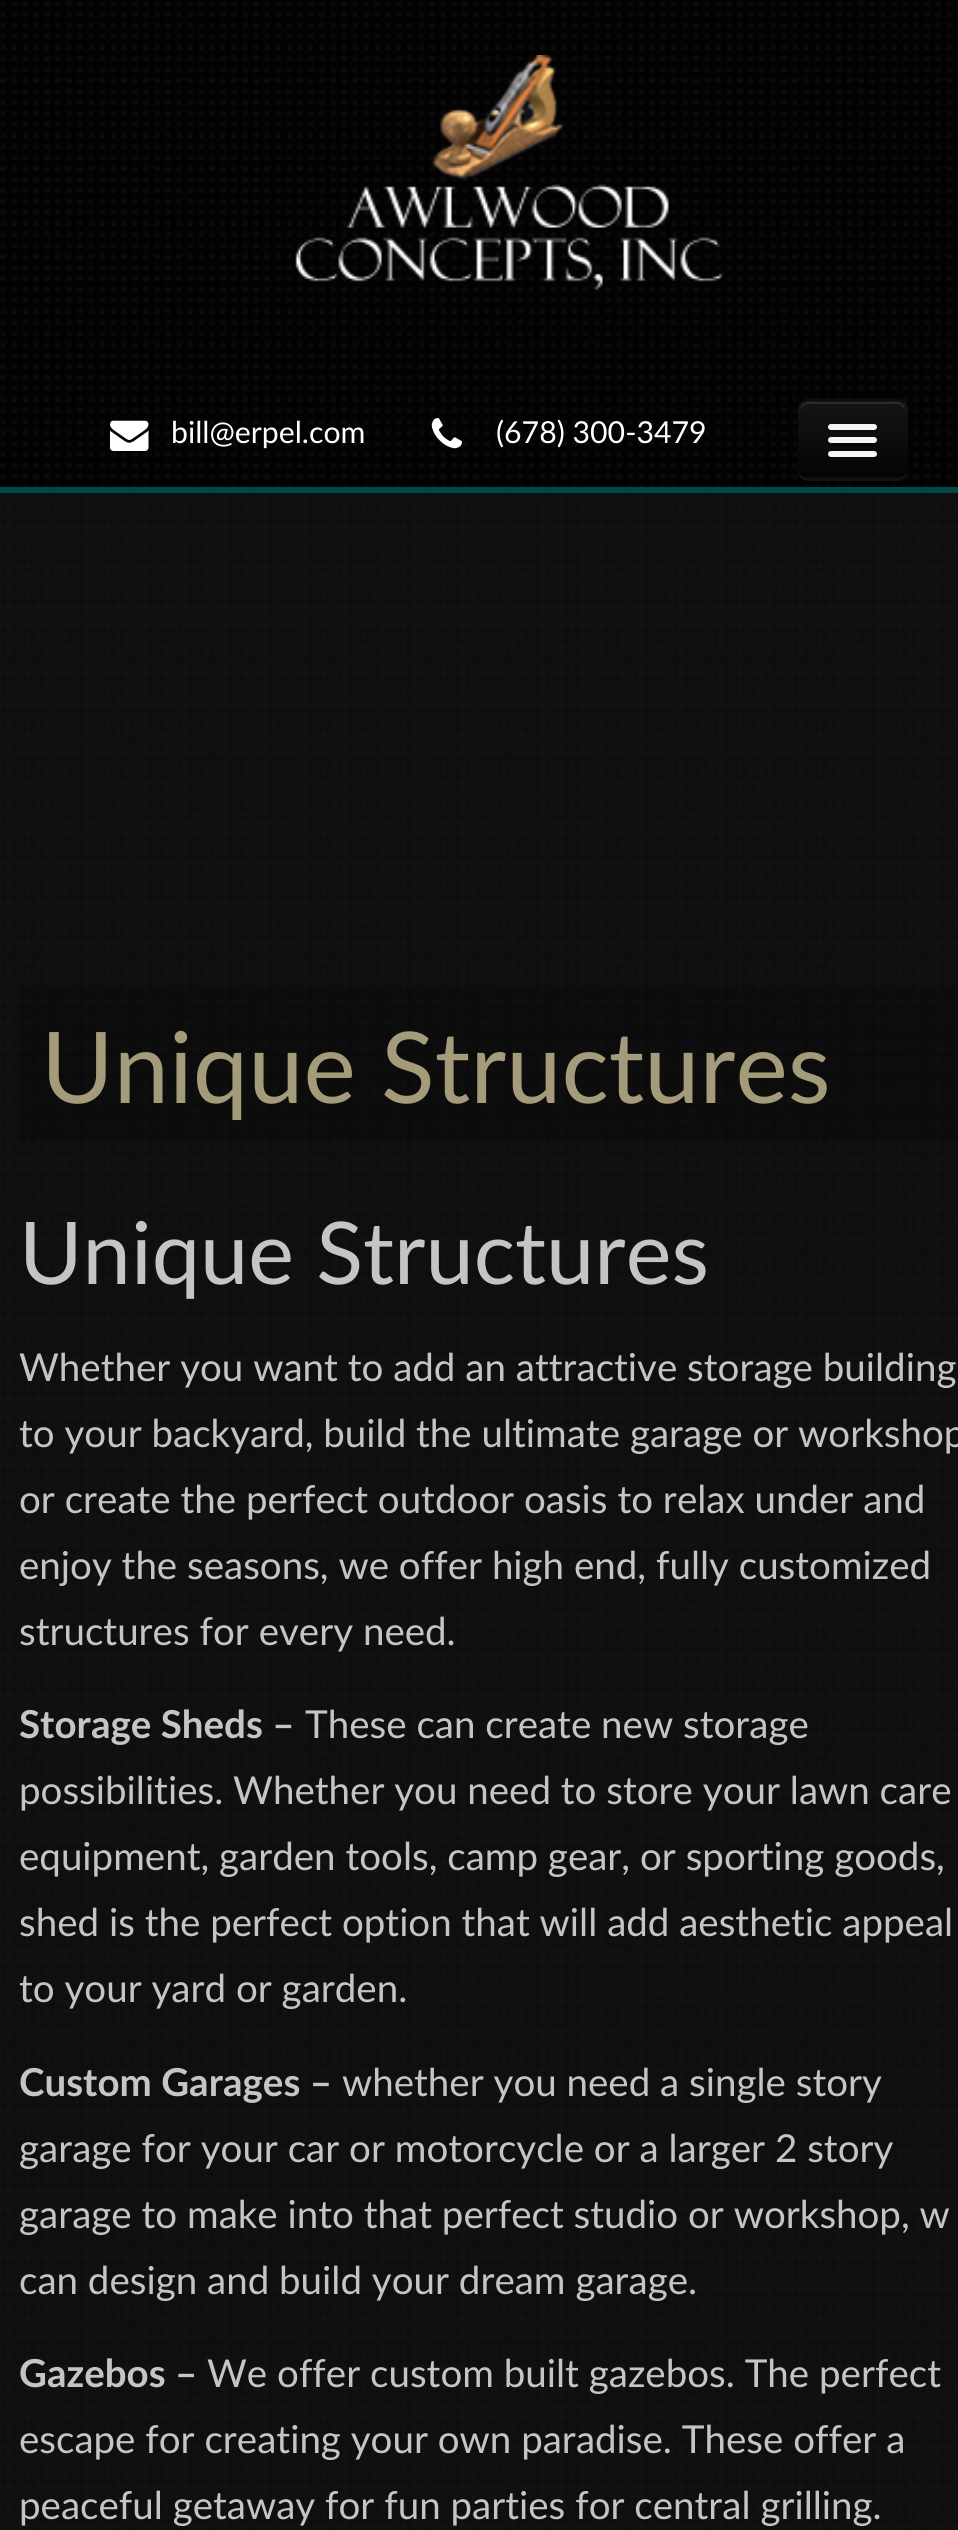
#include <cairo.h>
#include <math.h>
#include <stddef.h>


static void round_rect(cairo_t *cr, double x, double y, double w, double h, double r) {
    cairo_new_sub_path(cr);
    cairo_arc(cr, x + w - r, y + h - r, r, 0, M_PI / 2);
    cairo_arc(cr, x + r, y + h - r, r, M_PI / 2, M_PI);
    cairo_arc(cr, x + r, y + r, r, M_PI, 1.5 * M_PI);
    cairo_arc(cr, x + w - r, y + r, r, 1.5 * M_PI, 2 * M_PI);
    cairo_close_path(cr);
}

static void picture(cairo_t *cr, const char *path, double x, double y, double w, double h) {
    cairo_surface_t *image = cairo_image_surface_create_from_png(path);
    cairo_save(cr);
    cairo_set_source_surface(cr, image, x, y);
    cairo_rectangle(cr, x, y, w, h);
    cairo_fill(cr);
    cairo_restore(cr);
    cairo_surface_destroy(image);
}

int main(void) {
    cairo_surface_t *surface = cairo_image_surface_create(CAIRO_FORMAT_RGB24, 958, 2530);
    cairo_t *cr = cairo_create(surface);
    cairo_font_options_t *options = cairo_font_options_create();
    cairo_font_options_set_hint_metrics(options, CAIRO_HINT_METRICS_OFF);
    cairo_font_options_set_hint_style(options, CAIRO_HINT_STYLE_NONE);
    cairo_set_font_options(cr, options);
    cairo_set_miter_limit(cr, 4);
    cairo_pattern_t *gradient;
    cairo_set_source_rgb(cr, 1, 1, 1);
    cairo_paint(cr);
    picture(cr, "img1.png", 0, 0, 958, 2530);
    picture(cr, "img2.png", 0, 0, 958, 487);
    cairo_set_source_rgb(cr, 0, 0.282, 0.282);
    cairo_rectangle(cr, 0, 487, 958, 6);
    cairo_fill(cr);
    picture(cr, "img3.png", 295, 55, 429, 235);
    picture(cr, "img4.png", 110, 420, 39, 31);
    cairo_select_font_face(cr, "Lato", CAIRO_FONT_SLANT_NORMAL, CAIRO_FONT_WEIGHT_NORMAL);
    cairo_set_font_size(cr, 30.25);
    cairo_set_source_rgb(cr, 1, 1, 1);
    cairo_move_to(cr, 171, 443);
    cairo_show_text(cr, "bill@erpel.com");
    picture(cr, "img5.png", 431, 418, 31, 31);
    cairo_move_to(cr, 496, 443);
    cairo_show_text(cr, "(678) 300-3479");
    cairo_set_source_rgba(cr, 1, 1, 1, 0.07);
    cairo_new_path(cr);
    cairo_move_to(cr, 798, 471);
    cairo_curve_to(cr, 798, 477, 803, 481, 809, 481);
    cairo_line_to(cr, 897, 481);
    cairo_curve_to(cr, 903, 481, 908, 476, 908, 470);
    cairo_line_to(cr, 908, 413);
    cairo_line_to(cr, 907, 410);
    cairo_line_to(cr, 908, 468);
    cairo_curve_to(cr, 908, 474, 903, 478, 896, 478);
    cairo_line_to(cr, 808, 478);
    cairo_curve_to(cr, 804, 478, 799, 475, 798, 471);
    cairo_close_path(cr);
    cairo_fill(cr);
    cairo_set_source_rgb(cr, 0.055, 0.055, 0.055);
    round_rect(cr, 798, 399, 110, 80, 11);
    cairo_fill(cr);
    cairo_save(cr);
    round_rect(cr, 798, 399, 110, 80, 11);
    cairo_clip(cr);
    gradient = cairo_pattern_create_linear(853, 402, 853, 476);
    cairo_pattern_add_color_stop_rgba(gradient, 0, 0.082, 0.082, 0.082, 1);
    cairo_pattern_add_color_stop_rgba(gradient, 1, 0.016, 0.016, 0.016, 1);
    cairo_set_source(cr, gradient);
    cairo_pattern_destroy(gradient);
    cairo_rectangle(cr, 798, 402, 110, 74);
    cairo_fill(cr);
    cairo_restore(cr);
    cairo_set_source_rgba(cr, 1, 1, 1, 0.1);
    cairo_new_path(cr);
    cairo_move_to(cr, 808, 404);
    cairo_line_to(cr, 896, 404);
    cairo_curve_to(cr, 901, 404, 905, 408, 905, 412);
    cairo_curve_to(cr, 905, 398, 892, 402, 882, 402);
    cairo_line_to(cr, 823, 402);
    cairo_curve_to(cr, 813, 402, 800, 398, 800, 412);
    cairo_curve_to(cr, 800, 408, 804, 404, 808, 404);
    cairo_close_path(cr);
    cairo_fill(cr);
    cairo_new_path(cr);
    cairo_move_to(cr, 903.5, 474.5);
    cairo_curve_to(cr, 901.5, 476, 899, 477, 896.5, 477);
    cairo_line_to(cr, 808.5, 477);
    cairo_curve_to(cr, 806, 477, 803.5, 476, 801.5, 474.5);
    cairo_set_source_rgba(cr, 0, 0, 0, 0.25);
    cairo_set_line_width(cr, 2.8);
    cairo_stroke(cr);
    cairo_set_source_rgb(cr, 0.043, 0.043, 0.043);
    cairo_new_path(cr);
    cairo_move_to(cr, 828, 428);
    cairo_curve_to(cr, 826, 433, 837, 432, 838, 432);
    cairo_line_to(cr, 867, 432);
    cairo_curve_to(cr, 868, 432, 879, 433, 877, 428);
    cairo_line_to(cr, 875, 429);
    cairo_line_to(cr, 830, 429);
    cairo_close_path(cr);
    cairo_fill(cr);
    cairo_set_source_rgb(cr, 0.961, 0.961, 0.961);
    round_rect(cr, 828, 424, 49, 6, 3);
    cairo_fill(cr);
    cairo_set_source_rgb(cr, 0.031, 0.031, 0.031);
    cairo_new_path(cr);
    cairo_move_to(cr, 828, 442);
    cairo_curve_to(cr, 825, 447, 837, 446, 838, 446);
    cairo_line_to(cr, 867, 446);
    cairo_curve_to(cr, 868, 446, 880, 447, 877, 442);
    cairo_line_to(cr, 875, 443);
    cairo_line_to(cr, 830, 443);
    cairo_close_path(cr);
    cairo_fill(cr);
    cairo_set_source_rgb(cr, 0.961, 0.961, 0.961);
    round_rect(cr, 828, 437, 49, 6, 3);
    cairo_fill(cr);
    round_rect(cr, 828, 451, 49, 6, 3);
    cairo_fill(cr);
    cairo_set_source_rgba(cr, 0, 0, 0, 0.2);
    cairo_rectangle(cr, 19, 987, 939, 154);
    cairo_fill(cr);
    cairo_set_font_size(cr, 99);
    cairo_set_source_rgb(cr, 0.639, 0.608, 0.475);
    cairo_move_to(cr, 41, 1103);
    cairo_show_text(cr, "Unique Structures");
    cairo_set_font_size(cr, 86.5);
    cairo_set_source_rgb(cr, 0.773, 0.773, 0.773);
    cairo_move_to(cr, 19, 1284);
    cairo_show_text(cr, "Unique Structures");
    cairo_set_font_size(cr, 38.5);
    cairo_move_to(cr, 19, 1381);
    cairo_show_text(cr, "Whether you want to add an attractive storage building");
    cairo_move_to(cr, 19, 1447);
    cairo_show_text(cr, "to your backyard, build the ultimate garage or workshop");
    cairo_move_to(cr, 19, 1513);
    cairo_show_text(cr, "or create the perfect outdoor oasis to relax under and");
    cairo_move_to(cr, 19, 1579);
    cairo_show_text(cr, "enjoy the seasons, we offer high end, fully customized");
    cairo_move_to(cr, 19, 1645);
    cairo_show_text(cr, "structures for every need.");
    cairo_select_font_face(cr, "Lato", CAIRO_FONT_SLANT_NORMAL, CAIRO_FONT_WEIGHT_BOLD);
    cairo_move_to(cr, 19, 1738);
    cairo_show_text(cr, "Storage Sheds –");
    cairo_select_font_face(cr, "Lato", CAIRO_FONT_SLANT_NORMAL, CAIRO_FONT_WEIGHT_NORMAL);
    cairo_move_to(cr, 305, 1738);
    cairo_show_text(cr, "These can create new storage");
    cairo_move_to(cr, 19, 1804);
    cairo_show_text(cr, "possibilities. Whether you need to store your lawn care");
    cairo_move_to(cr, 19, 1870);
    cairo_show_text(cr, "equipment, garden tools, camp gear, or sporting goods,");
    cairo_move_to(cr, 19, 1936);
    cairo_show_text(cr, "shed is the perfect option that will add aesthetic appeal");
    cairo_move_to(cr, 19, 2002);
    cairo_show_text(cr, "to your yard or garden.");
    cairo_select_font_face(cr, "Lato", CAIRO_FONT_SLANT_NORMAL, CAIRO_FONT_WEIGHT_BOLD);
    cairo_move_to(cr, 19, 2096);
    cairo_show_text(cr, "Custom Garages –");
    cairo_select_font_face(cr, "Lato", CAIRO_FONT_SLANT_NORMAL, CAIRO_FONT_WEIGHT_NORMAL);
    cairo_move_to(cr, 342, 2096);
    cairo_show_text(cr, "whether you need a single story");
    cairo_move_to(cr, 19, 2162);
    cairo_show_text(cr, "garage for your car or motorcycle or a larger 2 story");
    cairo_move_to(cr, 19, 2228);
    cairo_show_text(cr, "garage to make into that perfect studio or workshop, w");
    cairo_move_to(cr, 19, 2294);
    cairo_show_text(cr, "can design and build your dream garage.");
    cairo_select_font_face(cr, "Lato", CAIRO_FONT_SLANT_NORMAL, CAIRO_FONT_WEIGHT_BOLD);
    cairo_move_to(cr, 19, 2387);
    cairo_show_text(cr, "Gazebos –");
    cairo_select_font_face(cr, "Lato", CAIRO_FONT_SLANT_NORMAL, CAIRO_FONT_WEIGHT_NORMAL);
    cairo_move_to(cr, 207, 2387);
    cairo_show_text(cr, "We offer custom built gazebos. The perfect");
    cairo_move_to(cr, 19, 2453);
    cairo_show_text(cr, "escape for creating your own paradise. These offer a");
    cairo_move_to(cr, 19, 2519);
    cairo_show_text(cr, "peaceful getaway for fun parties for central grilling.");
    cairo_surface_write_to_png(surface, "page.png");
    cairo_font_options_destroy(options);
    cairo_destroy(cr);
    cairo_surface_destroy(surface);
    return 0;
}
